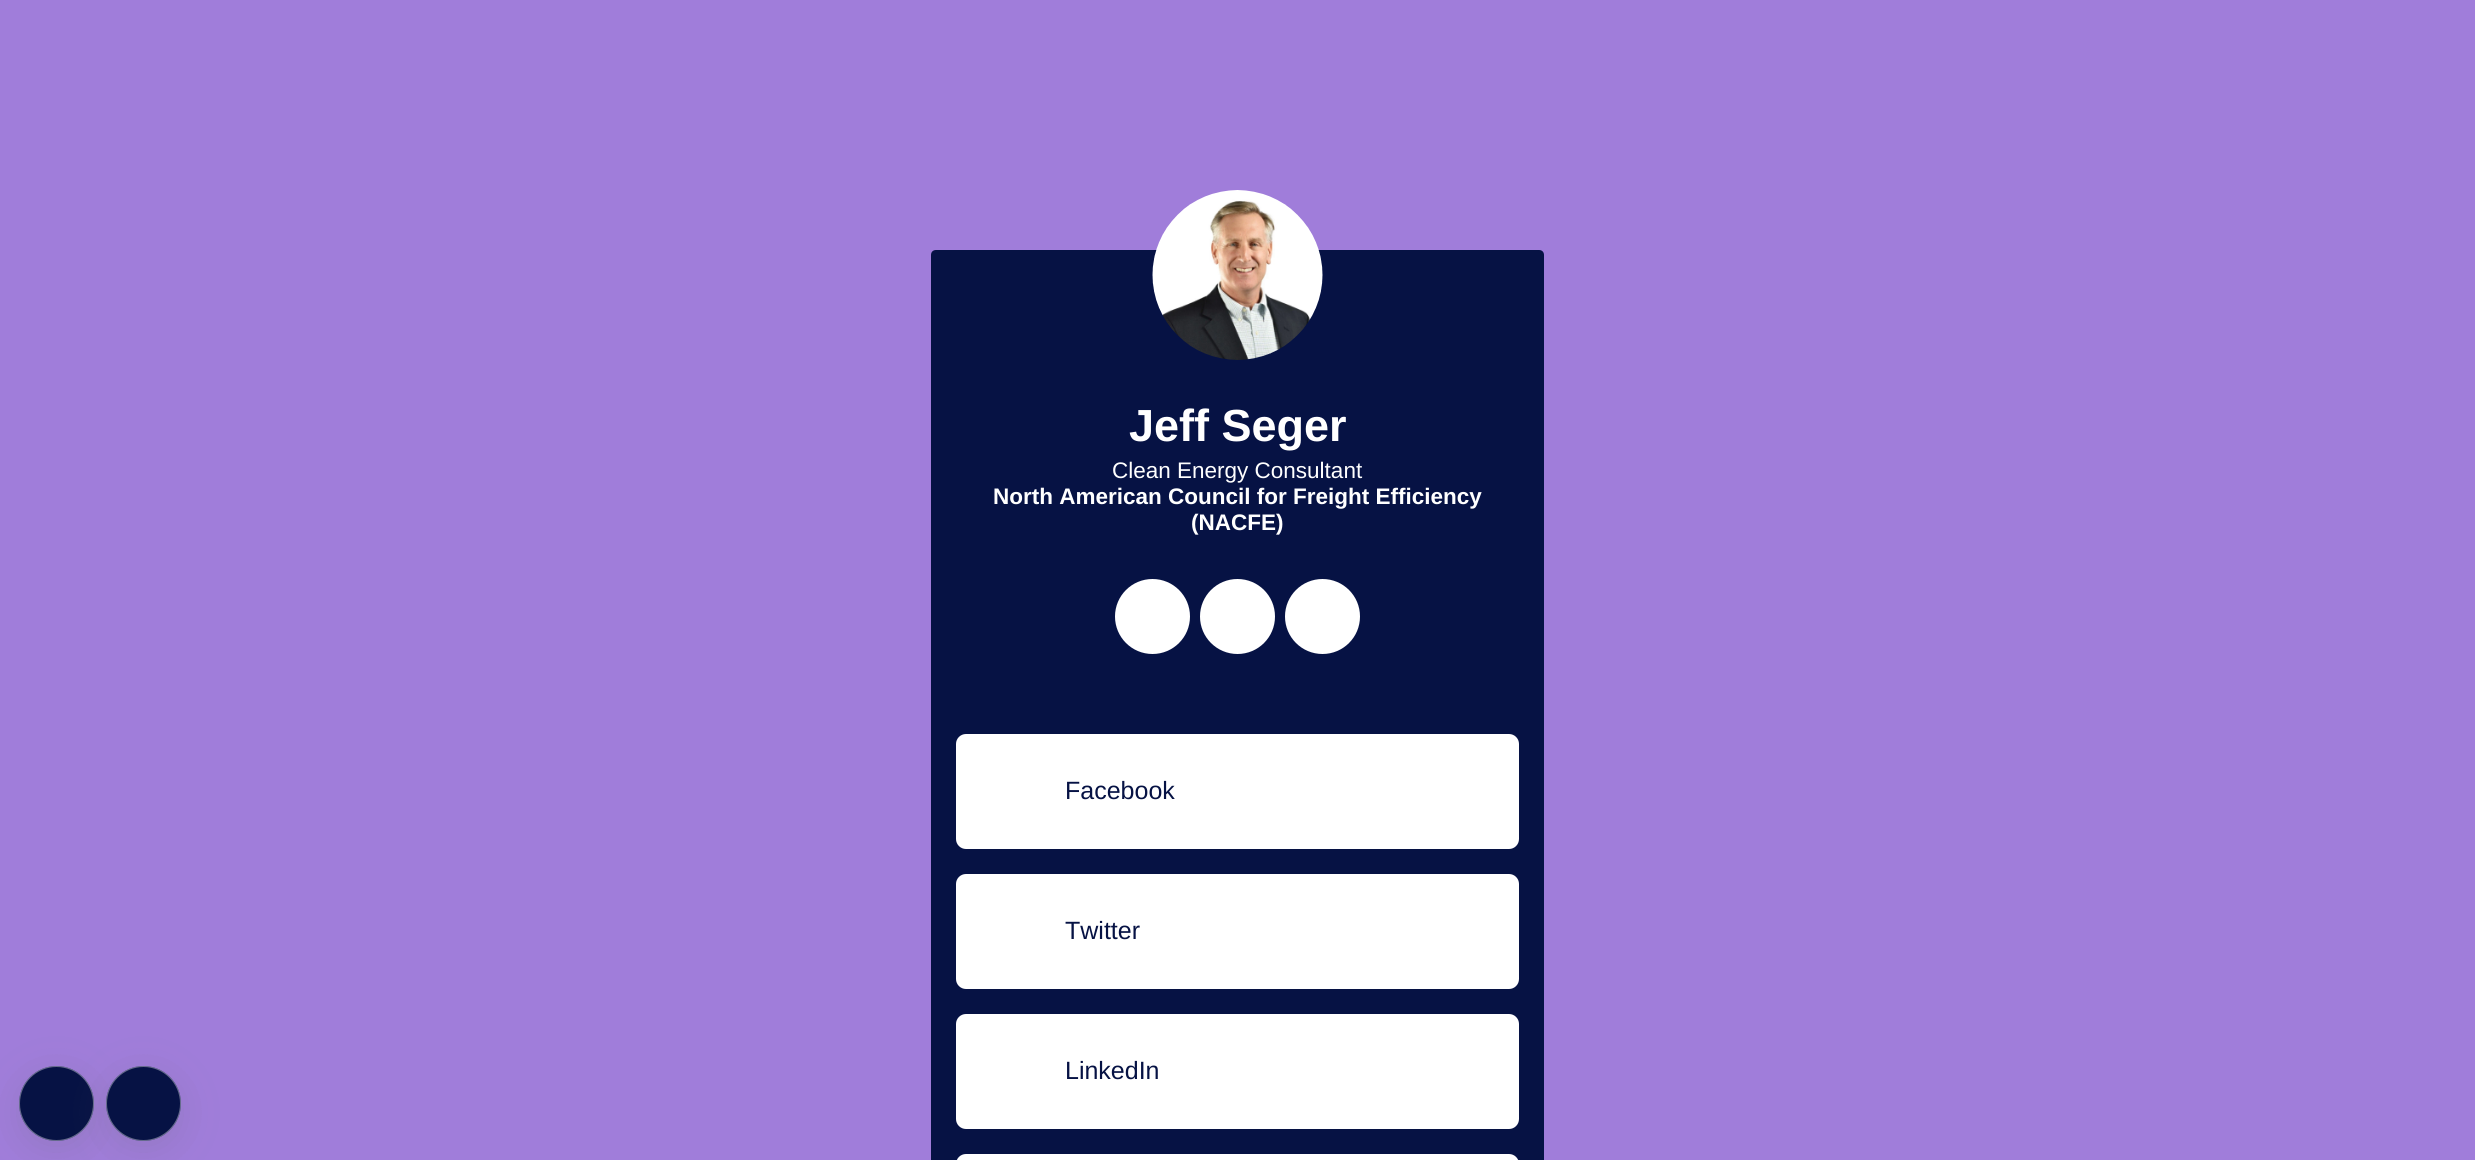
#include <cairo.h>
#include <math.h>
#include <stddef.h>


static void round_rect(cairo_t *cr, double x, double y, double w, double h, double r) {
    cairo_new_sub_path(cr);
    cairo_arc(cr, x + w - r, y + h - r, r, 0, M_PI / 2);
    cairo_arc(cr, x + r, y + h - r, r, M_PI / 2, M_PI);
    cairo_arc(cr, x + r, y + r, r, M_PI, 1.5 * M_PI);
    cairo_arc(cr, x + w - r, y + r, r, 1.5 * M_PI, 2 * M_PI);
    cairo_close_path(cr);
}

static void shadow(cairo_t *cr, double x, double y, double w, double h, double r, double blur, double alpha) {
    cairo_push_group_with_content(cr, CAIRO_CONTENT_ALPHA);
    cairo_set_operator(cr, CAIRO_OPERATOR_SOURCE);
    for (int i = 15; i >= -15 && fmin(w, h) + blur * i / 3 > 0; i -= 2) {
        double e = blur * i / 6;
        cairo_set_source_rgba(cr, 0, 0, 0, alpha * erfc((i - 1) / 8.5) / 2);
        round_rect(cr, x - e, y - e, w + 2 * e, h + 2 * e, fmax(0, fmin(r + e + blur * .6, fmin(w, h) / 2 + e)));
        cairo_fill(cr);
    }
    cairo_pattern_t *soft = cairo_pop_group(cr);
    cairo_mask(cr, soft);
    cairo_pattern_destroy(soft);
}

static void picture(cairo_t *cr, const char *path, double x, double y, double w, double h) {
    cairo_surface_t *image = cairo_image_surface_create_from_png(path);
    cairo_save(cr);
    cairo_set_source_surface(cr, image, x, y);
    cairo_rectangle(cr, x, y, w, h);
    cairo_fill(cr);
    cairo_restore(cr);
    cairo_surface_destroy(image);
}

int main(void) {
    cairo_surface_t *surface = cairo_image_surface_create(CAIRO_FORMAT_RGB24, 2475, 1160);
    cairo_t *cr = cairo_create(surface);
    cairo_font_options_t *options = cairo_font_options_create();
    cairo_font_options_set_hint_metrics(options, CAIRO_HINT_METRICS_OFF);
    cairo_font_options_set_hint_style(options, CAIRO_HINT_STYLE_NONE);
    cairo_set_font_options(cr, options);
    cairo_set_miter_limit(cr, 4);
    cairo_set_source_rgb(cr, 0.627, 0.49, 0.855);
    cairo_paint(cr);
    cairo_set_source_rgb(cr, 0.392, 0.392, 0.435);
    shadow(cr, 19, 1075, 75, 75, 37.5, 18, 0.2);
    cairo_set_source_rgb(cr, 0.024, 0.071, 0.267);
    cairo_arc(cr, 56.5, 1103.5, 37.5, 0, 2 * M_PI);
    cairo_fill(cr);
    cairo_arc(cr, 56.5, 1103.5, 37, 0, 2 * M_PI);
    cairo_set_source_rgba(cr, 1, 1, 1, 0.38);
    cairo_set_line_width(cr, 1);
    cairo_stroke(cr);
    cairo_set_source_rgb(cr, 0.392, 0.392, 0.435);
    shadow(cr, 106, 1075, 75, 75, 37.5, 18, 0.2);
    cairo_set_source_rgb(cr, 0.024, 0.071, 0.267);
    cairo_arc(cr, 143.5, 1103.5, 37.5, 0, 2 * M_PI);
    cairo_fill(cr);
    cairo_arc(cr, 143.5, 1103.5, 37, 0, 2 * M_PI);
    cairo_set_source_rgba(cr, 1, 1, 1, 0.38);
    cairo_stroke(cr);
    cairo_set_source_rgb(cr, 0.024, 0.071, 0.267);
    cairo_new_path(cr);
    cairo_move_to(cr, 936, 250);
    cairo_line_to(cr, 1539, 250);
    cairo_curve_to(cr, 1542, 250, 1544, 252, 1544, 255);
    cairo_line_to(cr, 1544, 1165);
    cairo_line_to(cr, 931, 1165);
    cairo_line_to(cr, 931, 255);
    cairo_curve_to(cr, 931, 252, 933, 250, 936, 250);
    cairo_close_path(cr);
    cairo_fill(cr);
    picture(cr, "img1.png", 1152, 190, 171, 170);
    cairo_select_font_face(cr, "Liberation Sans", CAIRO_FONT_SLANT_NORMAL, CAIRO_FONT_WEIGHT_BOLD);
    cairo_set_font_size(cr, 45);
    cairo_set_source_rgb(cr, 1, 1, 1);
    cairo_move_to(cr, 1129, 441);
    cairo_show_text(cr, "Jeff Seger");
    cairo_select_font_face(cr, "Liberation Sans", CAIRO_FONT_SLANT_NORMAL, CAIRO_FONT_WEIGHT_NORMAL);
    cairo_set_font_size(cr, 22.5);
    cairo_move_to(cr, 1112, 478);
    cairo_show_text(cr, "Clean Energy Consultant");
    cairo_select_font_face(cr, "Liberation Sans", CAIRO_FONT_SLANT_NORMAL, CAIRO_FONT_WEIGHT_BOLD);
    cairo_move_to(cr, 993, 504);
    cairo_show_text(cr, "North American Council for Freight Efficiency");
    cairo_move_to(cr, 1191, 530);
    cairo_show_text(cr, "(NACFE)");
    cairo_new_path(cr);
    cairo_arc(cr, 1152.5, 616.5, 37.5, 0, 2 * M_PI);
    cairo_fill(cr);
    cairo_arc(cr, 1237.5, 616.5, 37.5, 0, 2 * M_PI);
    cairo_fill(cr);
    cairo_arc(cr, 1322.5, 616.5, 37.5, 0, 2 * M_PI);
    cairo_fill(cr);
    round_rect(cr, 956, 734, 563, 115, 10);
    cairo_fill(cr);
    cairo_select_font_face(cr, "Liberation Sans", CAIRO_FONT_SLANT_NORMAL, CAIRO_FONT_WEIGHT_NORMAL);
    cairo_set_font_size(cr, 25);
    cairo_set_source_rgb(cr, 0.024, 0.071, 0.267);
    cairo_move_to(cr, 1065, 799);
    cairo_show_text(cr, "Facebook");
    cairo_set_source_rgb(cr, 1, 1, 1);
    round_rect(cr, 956, 874, 563, 115, 10);
    cairo_fill(cr);
    cairo_set_source_rgb(cr, 0.024, 0.071, 0.267);
    cairo_move_to(cr, 1065, 939);
    cairo_show_text(cr, "Twitter");
    cairo_set_source_rgb(cr, 1, 1, 1);
    round_rect(cr, 956, 1014, 563, 115, 10);
    cairo_fill(cr);
    cairo_set_source_rgb(cr, 0.024, 0.071, 0.267);
    cairo_move_to(cr, 1065, 1079);
    cairo_show_text(cr, "LinkedIn");
    cairo_set_source_rgb(cr, 1, 1, 1);
    round_rect(cr, 956, 1154, 563, 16, 10);
    cairo_fill(cr);
    cairo_surface_write_to_png(surface, "page.png");
    cairo_font_options_destroy(options);
    cairo_destroy(cr);
    cairo_surface_destroy(surface);
    return 0;
}
